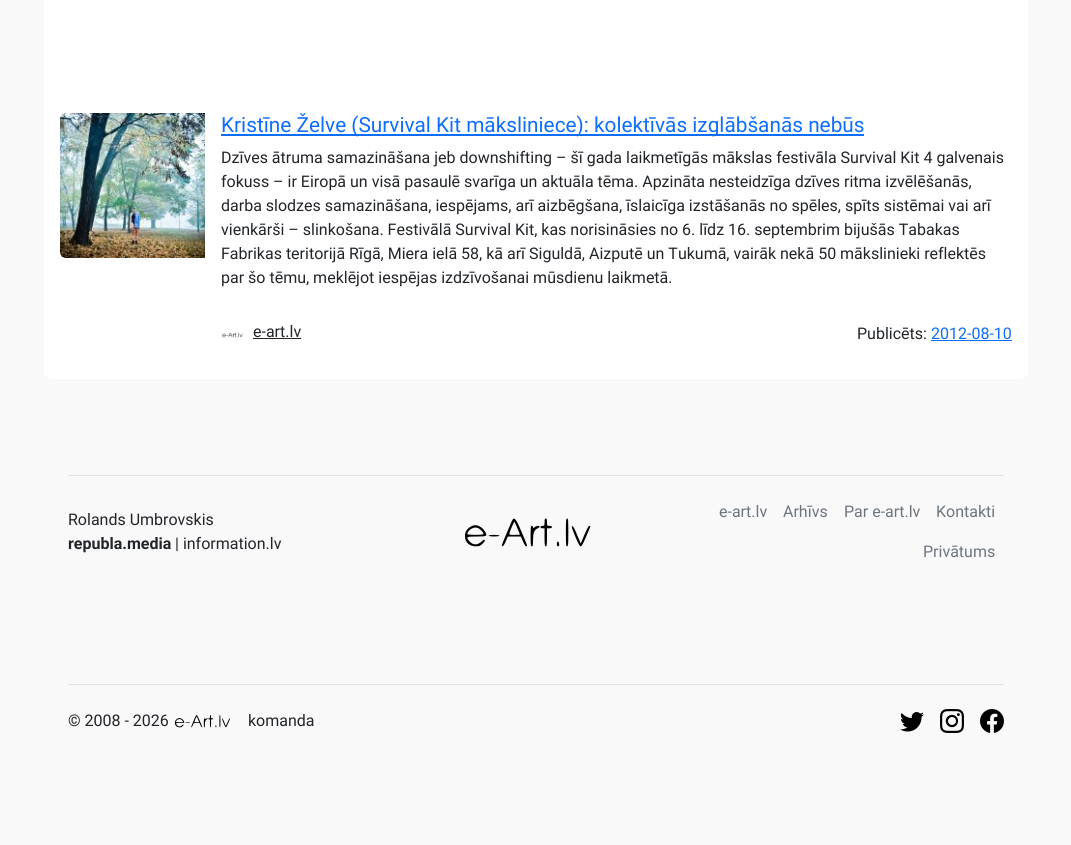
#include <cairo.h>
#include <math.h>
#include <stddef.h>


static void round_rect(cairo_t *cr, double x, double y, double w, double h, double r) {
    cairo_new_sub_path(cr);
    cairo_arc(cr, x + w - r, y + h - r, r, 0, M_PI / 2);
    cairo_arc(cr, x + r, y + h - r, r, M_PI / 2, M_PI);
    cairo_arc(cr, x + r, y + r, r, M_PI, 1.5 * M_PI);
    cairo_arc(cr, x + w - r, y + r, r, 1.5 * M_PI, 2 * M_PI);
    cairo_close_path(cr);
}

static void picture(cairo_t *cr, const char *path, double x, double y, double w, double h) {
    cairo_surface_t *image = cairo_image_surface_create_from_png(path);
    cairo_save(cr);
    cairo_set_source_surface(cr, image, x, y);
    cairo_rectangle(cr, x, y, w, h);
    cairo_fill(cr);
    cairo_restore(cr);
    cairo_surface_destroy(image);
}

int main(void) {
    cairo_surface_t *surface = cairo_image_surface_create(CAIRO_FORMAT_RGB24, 1071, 845);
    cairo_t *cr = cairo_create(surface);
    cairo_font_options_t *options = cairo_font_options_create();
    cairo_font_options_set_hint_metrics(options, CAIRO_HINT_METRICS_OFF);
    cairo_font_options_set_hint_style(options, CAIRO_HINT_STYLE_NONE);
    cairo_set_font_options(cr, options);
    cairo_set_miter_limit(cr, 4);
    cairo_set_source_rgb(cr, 0.973, 0.976, 0.98);
    cairo_paint(cr);
    cairo_set_source_rgb(cr, 1, 1, 1);
    round_rect(cr, 44, -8, 984, 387, 8);
    cairo_fill(cr);
    picture(cr, "img1.png", 60, 113, 145, 145);
    cairo_set_source_rgb(cr, 0.051, 0.431, 0.992);
    cairo_rectangle(cr, 221, 134, 643, 2);
    cairo_fill(cr);
    cairo_select_font_face(cr, "Roboto", CAIRO_FONT_SLANT_NORMAL, CAIRO_FONT_WEIGHT_NORMAL);
    cairo_set_font_size(cr, 20.8);
    cairo_move_to(cr, 221, 132);
    cairo_show_text(cr, "Kristīne Želve (Survival Kit māksliniece): kolektīvās izglābšanās nebūs");
    cairo_set_font_size(cr, 16);
    cairo_set_source_rgb(cr, 0.129, 0.145, 0.161);
    cairo_move_to(cr, 221, 163);
    cairo_show_text(cr, "Dzīves ātruma samazināšana jeb downshifting – šī gada laikmetīgās mākslas festivāla Survival Kit 4 galvenais");
    cairo_move_to(cr, 221, 187);
    cairo_show_text(cr, "fokuss – ir Eiropā un visā pasaulē svarīga un aktuāla tēma. Apzināta nesteidzīga dzīves ritma izvēlēšanās,");
    cairo_move_to(cr, 221, 211);
    cairo_show_text(cr, "darba slodzes samazināšana, iespējams, arī aizbēgšana, īslaicīga izstāšanās no spēles, spīts sistēmai vai arī");
    cairo_move_to(cr, 221, 235);
    cairo_show_text(cr, "vienkārši – slinkošana. Festivālā Survival Kit, kas norisināsies no 6. līdz 16. septembrim bijušās Tabakas");
    cairo_move_to(cr, 221, 259);
    cairo_show_text(cr, "Fabrikas teritorijā Rīgā, Miera ielā 58, kā arī Siguldā, Aizputē un Tukumā, vairāk nekā 50 mākslinieki reflektēs");
    cairo_move_to(cr, 221, 283);
    cairo_show_text(cr, "par šo tēmu, meklējot iespējas izdzīvošanai mūsdienu laikmetā.");
    picture(cr, "img2.png", 221, 332, 22, 6);
    cairo_move_to(cr, 253, 337);
    cairo_show_text(cr, "e-art.lv");
    cairo_rectangle(cr, 253, 338, 48, 1);
    cairo_fill(cr);
    cairo_move_to(cr, 857, 339);
    cairo_show_text(cr, "Publicēts:");
    cairo_set_source_rgb(cr, 0.051, 0.431, 0.992);
    cairo_move_to(cr, 931, 339);
    cairo_show_text(cr, "2012-08-10");
    cairo_rectangle(cr, 931, 340, 81, 1);
    cairo_fill(cr);
    cairo_set_source_rgb(cr, 0.871, 0.886, 0.902);
    cairo_rectangle(cr, 68, 475, 936, 1);
    cairo_fill(cr);
    cairo_set_source_rgb(cr, 0.129, 0.145, 0.161);
    cairo_move_to(cr, 68, 525);
    cairo_show_text(cr, "Rolands Umbrovskis");
    cairo_select_font_face(cr, "Roboto", CAIRO_FONT_SLANT_NORMAL, CAIRO_FONT_WEIGHT_BOLD);
    cairo_move_to(cr, 68, 549);
    cairo_show_text(cr, "republa.media");
    cairo_select_font_face(cr, "Roboto", CAIRO_FONT_SLANT_NORMAL, CAIRO_FONT_WEIGHT_NORMAL);
    cairo_move_to(cr, 175, 549);
    cairo_show_text(cr, "| information.lv");
    picture(cr, "img3.png", 465, 518, 126, 29);
    cairo_set_source_rgb(cr, 0.424, 0.459, 0.49);
    cairo_move_to(cr, 719, 517);
    cairo_show_text(cr, "e-art.lv");
    cairo_move_to(cr, 783, 517);
    cairo_show_text(cr, "Arhīvs");
    cairo_move_to(cr, 844, 517);
    cairo_show_text(cr, "Par e-art.lv");
    cairo_move_to(cr, 936, 517);
    cairo_show_text(cr, "Kontakti");
    cairo_move_to(cr, 923, 557);
    cairo_show_text(cr, "Privātums");
    cairo_set_source_rgb(cr, 0.871, 0.886, 0.902);
    cairo_rectangle(cr, 68, 684, 936, 1);
    cairo_fill(cr);
    cairo_set_source_rgb(cr, 0.129, 0.145, 0.161);
    cairo_move_to(cr, 68, 726);
    cairo_show_text(cr, "© 2008 - 2026");
    picture(cr, "img4.png", 174, 715, 57, 13);
    cairo_move_to(cr, 248, 726);
    cairo_show_text(cr, "komanda");
    picture(cr, "img5.png", 900, 712, 24, 20);
    picture(cr, "img6.png", 940, 709, 24, 24);
    picture(cr, "img7.png", 980, 709, 24, 24);
    cairo_surface_write_to_png(surface, "page.png");
    cairo_font_options_destroy(options);
    cairo_destroy(cr);
    cairo_surface_destroy(surface);
    return 0;
}
